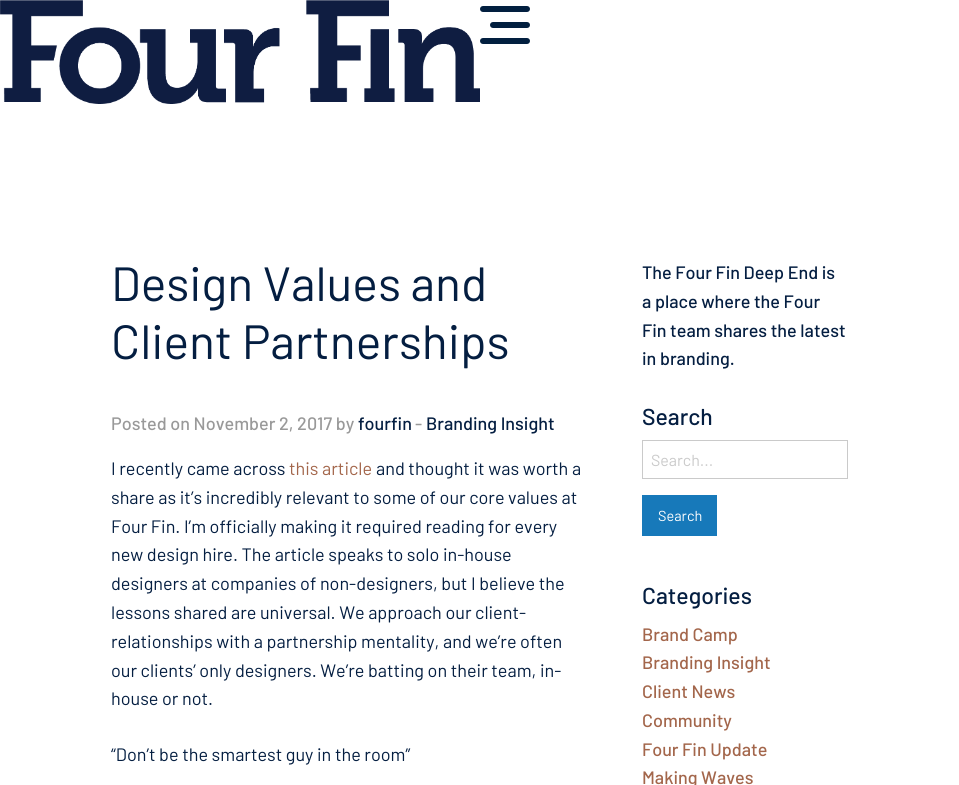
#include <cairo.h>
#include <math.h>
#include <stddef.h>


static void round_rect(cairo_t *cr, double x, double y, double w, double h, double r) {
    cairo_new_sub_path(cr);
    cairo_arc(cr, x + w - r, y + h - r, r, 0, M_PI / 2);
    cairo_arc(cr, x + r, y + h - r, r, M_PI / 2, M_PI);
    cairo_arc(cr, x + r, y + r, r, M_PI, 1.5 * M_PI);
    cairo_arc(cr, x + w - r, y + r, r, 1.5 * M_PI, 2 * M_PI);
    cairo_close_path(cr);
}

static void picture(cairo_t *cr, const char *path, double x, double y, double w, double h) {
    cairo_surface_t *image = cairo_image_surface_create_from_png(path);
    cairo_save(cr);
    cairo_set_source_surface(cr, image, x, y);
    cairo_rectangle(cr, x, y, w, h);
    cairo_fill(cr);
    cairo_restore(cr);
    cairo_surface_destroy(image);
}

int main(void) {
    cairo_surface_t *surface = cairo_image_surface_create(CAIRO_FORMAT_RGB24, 959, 785);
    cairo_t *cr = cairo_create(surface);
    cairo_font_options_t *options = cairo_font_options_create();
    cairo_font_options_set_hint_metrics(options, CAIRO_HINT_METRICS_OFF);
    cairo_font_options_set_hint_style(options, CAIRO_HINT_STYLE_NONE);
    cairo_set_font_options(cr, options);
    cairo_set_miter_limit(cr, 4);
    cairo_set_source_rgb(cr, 1, 1, 1);
    cairo_paint(cr);
    picture(cr, "img1.png", 0, 0, 480, 104);
    cairo_set_source_rgb(cr, 0.008, 0.122, 0.247);
    round_rect(cr, 480, 38, 50, 6, 3);
    cairo_fill(cr);
    round_rect(cr, 490, 22, 40, 6, 3);
    cairo_fill(cr);
    round_rect(cr, 480, 6, 50, 6, 3);
    cairo_fill(cr);
    cairo_select_font_face(cr, "Barlow", CAIRO_FONT_SLANT_NORMAL, CAIRO_FONT_WEIGHT_NORMAL);
    cairo_set_font_size(cr, 48);
    cairo_set_source_rgb(cr, 0.016, 0.118, 0.255);
    cairo_move_to(cr, 111, 301);
    cairo_show_text(cr, "Design Values and");
    cairo_move_to(cr, 111, 359);
    cairo_show_text(cr, "Client Partnerships");
    cairo_select_font_face(cr, "Barlow Medium", CAIRO_FONT_SLANT_NORMAL, CAIRO_FONT_WEIGHT_NORMAL);
    cairo_set_font_size(cr, 18);
    cairo_set_source_rgb(cr, 0.6, 0.6, 0.6);
    cairo_move_to(cr, 111, 430);
    cairo_show_text(cr, "Posted on November 2, 2017 by");
    cairo_set_source_rgb(cr, 0.016, 0.118, 0.255);
    cairo_move_to(cr, 358, 430);
    cairo_show_text(cr, "fourfin");
    cairo_set_source_rgb(cr, 0.6, 0.6, 0.6);
    cairo_move_to(cr, 415, 430);
    cairo_show_text(cr, "-");
    cairo_set_source_rgb(cr, 0.016, 0.118, 0.255);
    cairo_move_to(cr, 426, 430);
    cairo_show_text(cr, "Branding Insight");
    cairo_select_font_face(cr, "Barlow", CAIRO_FONT_SLANT_NORMAL, CAIRO_FONT_WEIGHT_NORMAL);
    cairo_move_to(cr, 111, 475);
    cairo_show_text(cr, "I recently came across");
    cairo_set_source_rgb(cr, 0.639, 0.4, 0.294);
    cairo_move_to(cr, 289, 475);
    cairo_show_text(cr, "this article");
    cairo_set_source_rgb(cr, 0.016, 0.118, 0.255);
    cairo_move_to(cr, 376, 475);
    cairo_show_text(cr, "and thought it was worth a");
    cairo_move_to(cr, 111, 504);
    cairo_show_text(cr, "share as it’s incredibly relevant to some of our core values at");
    cairo_move_to(cr, 111, 533);
    cairo_show_text(cr, "Four Fin. I’m officially making it required reading for every");
    cairo_move_to(cr, 111, 561);
    cairo_show_text(cr, "new design hire. The article speaks to solo in-house");
    cairo_move_to(cr, 111, 590);
    cairo_show_text(cr, "designers at companies of non-designers, but I believe the");
    cairo_move_to(cr, 111, 619);
    cairo_show_text(cr, "lessons shared are universal. We approach our client-");
    cairo_move_to(cr, 111, 648);
    cairo_show_text(cr, "relationships with a partnership mentality, and we’re often");
    cairo_move_to(cr, 111, 677);
    cairo_show_text(cr, "our clients’ only designers. We’re batting on their team, in-");
    cairo_move_to(cr, 111, 705);
    cairo_show_text(cr, "house or not.");
    cairo_move_to(cr, 111, 761);
    cairo_show_text(cr, "“Don’t be the smartest guy in the room”");
    cairo_select_font_face(cr, "Barlow Medium", CAIRO_FONT_SLANT_NORMAL, CAIRO_FONT_WEIGHT_NORMAL);
    cairo_move_to(cr, 642, 279);
    cairo_show_text(cr, "The Four Fin Deep End is");
    cairo_move_to(cr, 642, 308);
    cairo_show_text(cr, "a place where the Four");
    cairo_move_to(cr, 642, 337);
    cairo_show_text(cr, "Fin team shares the latest");
    cairo_move_to(cr, 642, 365);
    cairo_show_text(cr, "in branding.");
    cairo_set_font_size(cr, 23);
    cairo_move_to(cr, 642, 425);
    cairo_show_text(cr, "Search");
    cairo_rectangle(cr, 642.5, 440.5, 205, 38);
    cairo_set_source_rgb(cr, 0.792, 0.792, 0.792);
    cairo_set_line_width(cr, 1);
    cairo_stroke(cr);
    cairo_select_font_face(cr, "Barlow", CAIRO_FONT_SLANT_NORMAL, CAIRO_FONT_WEIGHT_NORMAL);
    cairo_set_font_size(cr, 16);
    cairo_move_to(cr, 651, 466);
    cairo_show_text(cr, "Search...");
    cairo_set_source_rgb(cr, 0.09, 0.475, 0.729);
    cairo_rectangle(cr, 642, 495, 75, 41);
    cairo_fill(cr);
    cairo_set_font_size(cr, 14.5);
    cairo_set_source_rgb(cr, 0.996, 0.996, 0.996);
    cairo_move_to(cr, 658, 521);
    cairo_show_text(cr, "Search");
    cairo_select_font_face(cr, "Barlow Medium", CAIRO_FONT_SLANT_NORMAL, CAIRO_FONT_WEIGHT_NORMAL);
    cairo_set_font_size(cr, 23);
    cairo_set_source_rgb(cr, 0.016, 0.118, 0.255);
    cairo_move_to(cr, 642, 604);
    cairo_show_text(cr, "Categories");
    cairo_set_font_size(cr, 18);
    cairo_set_source_rgb(cr, 0.639, 0.4, 0.294);
    cairo_move_to(cr, 642, 641);
    cairo_show_text(cr, "Brand Camp");
    cairo_move_to(cr, 642, 669);
    cairo_show_text(cr, "Branding Insight");
    cairo_move_to(cr, 642, 698);
    cairo_show_text(cr, "Client News");
    cairo_move_to(cr, 642, 727);
    cairo_show_text(cr, "Community");
    cairo_move_to(cr, 642, 756);
    cairo_show_text(cr, "Four Fin Update");
    cairo_move_to(cr, 642, 784);
    cairo_show_text(cr, "Making Waves");
    cairo_surface_write_to_png(surface, "page.png");
    cairo_font_options_destroy(options);
    cairo_destroy(cr);
    cairo_surface_destroy(surface);
    return 0;
}
